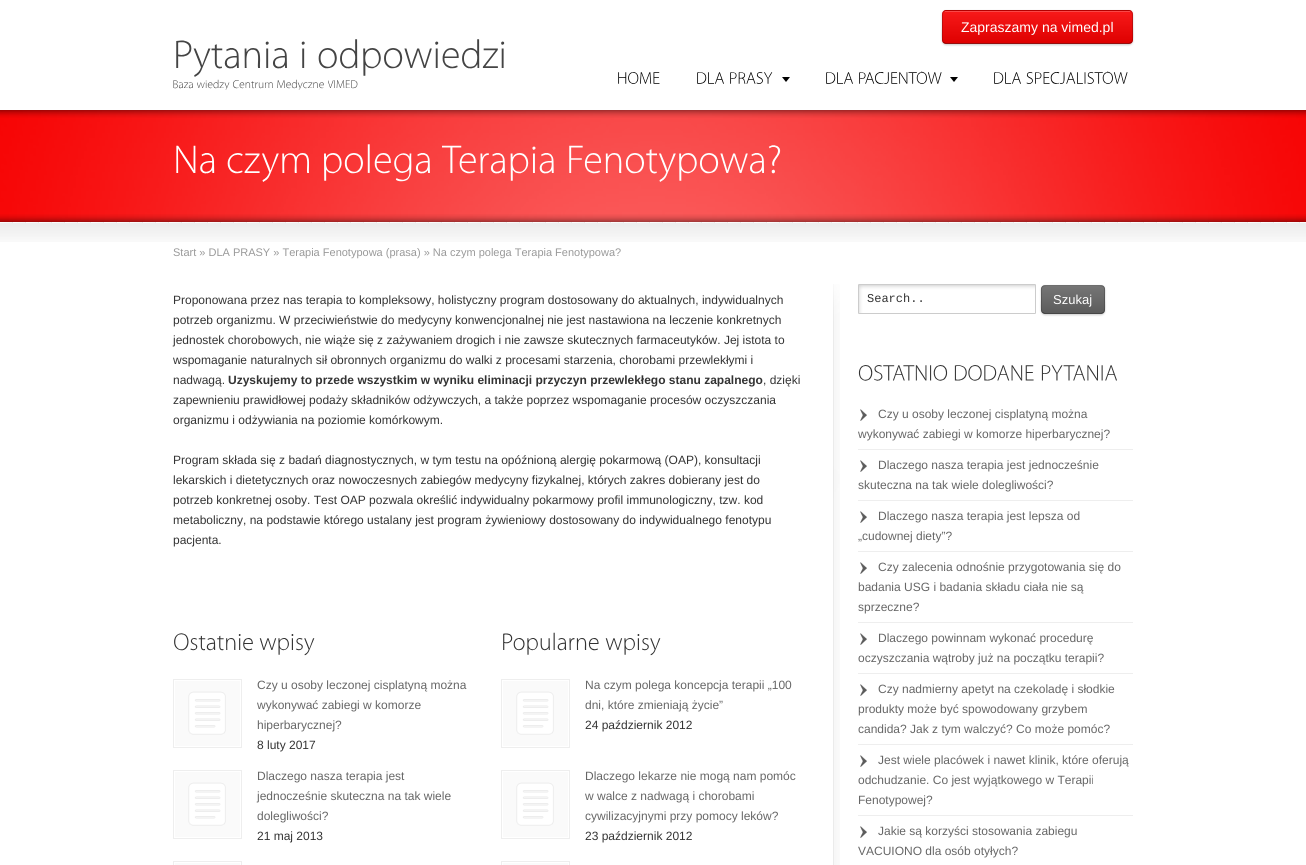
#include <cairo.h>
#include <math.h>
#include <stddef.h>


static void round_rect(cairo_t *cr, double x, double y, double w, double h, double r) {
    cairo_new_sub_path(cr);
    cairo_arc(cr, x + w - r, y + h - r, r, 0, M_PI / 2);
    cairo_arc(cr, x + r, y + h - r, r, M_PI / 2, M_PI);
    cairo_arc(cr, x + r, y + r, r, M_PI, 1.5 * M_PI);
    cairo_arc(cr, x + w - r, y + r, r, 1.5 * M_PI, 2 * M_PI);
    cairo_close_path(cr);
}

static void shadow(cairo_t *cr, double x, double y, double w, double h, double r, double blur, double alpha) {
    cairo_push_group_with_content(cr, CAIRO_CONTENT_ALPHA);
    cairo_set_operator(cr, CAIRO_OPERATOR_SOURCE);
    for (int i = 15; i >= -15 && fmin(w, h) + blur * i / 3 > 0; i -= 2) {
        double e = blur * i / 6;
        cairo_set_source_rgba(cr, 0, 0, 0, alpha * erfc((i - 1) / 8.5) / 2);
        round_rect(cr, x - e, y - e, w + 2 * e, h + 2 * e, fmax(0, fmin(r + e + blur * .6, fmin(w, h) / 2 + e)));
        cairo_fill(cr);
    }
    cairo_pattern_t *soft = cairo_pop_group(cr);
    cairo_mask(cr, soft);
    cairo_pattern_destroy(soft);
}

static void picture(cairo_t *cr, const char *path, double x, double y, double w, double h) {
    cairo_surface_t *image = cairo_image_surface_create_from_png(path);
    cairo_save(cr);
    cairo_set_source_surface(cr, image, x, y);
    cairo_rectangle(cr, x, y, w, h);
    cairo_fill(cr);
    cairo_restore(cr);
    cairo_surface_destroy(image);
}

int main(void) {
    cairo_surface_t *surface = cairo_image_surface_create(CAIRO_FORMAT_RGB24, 1306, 865);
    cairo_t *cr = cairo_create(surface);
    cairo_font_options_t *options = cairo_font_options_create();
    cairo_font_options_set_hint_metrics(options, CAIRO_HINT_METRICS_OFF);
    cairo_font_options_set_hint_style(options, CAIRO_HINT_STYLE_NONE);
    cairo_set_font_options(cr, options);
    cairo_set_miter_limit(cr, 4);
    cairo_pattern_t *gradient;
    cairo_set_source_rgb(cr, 1, 1, 1);
    cairo_paint(cr);
    cairo_set_source_rgb(cr, 0, 0, 0);
    shadow(cr, 942, 11, 191, 34, 4, 1, 0.2);
    cairo_set_source_rgb(cr, 0.965, 0, 0);
    round_rect(cr, 942, 10, 191, 34, 4);
    cairo_fill(cr);
    cairo_save(cr);
    round_rect(cr, 942, 10, 191, 34, 4);
    cairo_clip(cr);
    gradient = cairo_pattern_create_linear(1038, 11, 1038, -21);
    cairo_pattern_add_color_stop_rgba(gradient, 0, 0, 0, 0, 0.1);
    cairo_pattern_add_color_stop_rgba(gradient, 1, 1, 1, 1, 0.1);
    cairo_set_source(cr, gradient);
    cairo_pattern_destroy(gradient);
    cairo_rectangle(cr, 942, 10, 191, 1);
    cairo_fill(cr);
    gradient = cairo_pattern_create_linear(1038, 43, 1038, 11);
    cairo_pattern_add_color_stop_rgba(gradient, 0, 0, 0, 0, 0.1);
    cairo_pattern_add_color_stop_rgba(gradient, 1, 1, 1, 1, 0.1);
    cairo_set_source(cr, gradient);
    cairo_pattern_destroy(gradient);
    cairo_rectangle(cr, 942, 11, 191, 32);
    cairo_fill(cr);
    gradient = cairo_pattern_create_linear(1038, 75, 1038, 43);
    cairo_pattern_add_color_stop_rgba(gradient, 0, 0, 0, 0, 0.1);
    cairo_pattern_add_color_stop_rgba(gradient, 1, 1, 1, 1, 0.1);
    cairo_set_source(cr, gradient);
    cairo_pattern_destroy(gradient);
    cairo_rectangle(cr, 942, 43, 191, 1);
    cairo_fill(cr);
    cairo_restore(cr);
    cairo_new_path(cr);
    cairo_move_to(cr, 1131.5, 42.5);
    cairo_line_to(cr, 1129, 43.5);
    cairo_line_to(cr, 945.5, 43.5);
    cairo_line_to(cr, 943.5, 42.5);
    cairo_set_source_rgba(cr, 0, 0, 0, 0.4);
    cairo_set_line_width(cr, 1);
    cairo_stroke(cr);
    cairo_new_path(cr);
    cairo_move_to(cr, 943.5, 42.5);
    cairo_curve_to(cr, 941.5, 40, 942.5, 30, 942.5, 27);
    cairo_line_to(cr, 942.5, 18.5);
    cairo_curve_to(cr, 942.5, 15.5, 942, 10.5, 946, 10.5);
    cairo_line_to(cr, 1129, 10.5);
    cairo_curve_to(cr, 1133, 10.5, 1132.5, 15.5, 1132.5, 18.5);
    cairo_line_to(cr, 1132.5, 27);
    cairo_curve_to(cr, 1132.5, 30, 1133.5, 40, 1131.5, 42.5);
    cairo_set_source_rgba(cr, 0, 0, 0, 0.2);
    cairo_stroke(cr);
    cairo_set_source_rgba(cr, 1, 1, 1, 0.2);
    cairo_rectangle(cr, 945, 11, 185, 1);
    cairo_fill(cr);
    cairo_select_font_face(cr, "Liberation Sans", CAIRO_FONT_SLANT_NORMAL, CAIRO_FONT_WEIGHT_NORMAL);
    cairo_set_font_size(cr, 14);
    cairo_set_source_rgb(cr, 1, 1, 1);
    cairo_move_to(cr, 961, 32);
    cairo_show_text(cr, "Zapraszamy na vimed.pl");
    picture(cr, "img1.png", 176, 40, 111, 37);
    picture(cr, "img2.png", 301, 41, 4, 27);
    picture(cr, "img3.png", 318, 39, 187, 37);
    picture(cr, "img4.png", 173, 80, 20, 9);
    picture(cr, "img5.png", 197, 79, 33, 11);
    picture(cr, "img6.png", 233, 80, 40, 9);
    picture(cr, "img7.png", 277, 79, 47, 11);
    picture(cr, "img8.png", 328, 80, 30, 9);
    picture(cr, "img9.png", 618, 72, 42, 12);
    picture(cr, "img10.png", 697, 72, 27, 12);
    picture(cr, "img11.png", 730, 72, 43, 12);
    cairo_set_source_rgb(cr, 0, 0, 0);
    cairo_new_path(cr);
    cairo_move_to(cr, 782, 77);
    cairo_line_to(cr, 790, 77);
    cairo_line_to(cr, 786, 82);
    cairo_close_path(cr);
    cairo_fill(cr);
    picture(cr, "img10.png", 826, 72, 27, 12);
    picture(cr, "img12.png", 859, 71, 83, 13);
    cairo_new_path(cr);
    cairo_move_to(cr, 950, 77);
    cairo_line_to(cr, 958, 77);
    cairo_line_to(cr, 954, 82);
    cairo_close_path(cr);
    cairo_fill(cr);
    picture(cr, "img10.png", 994, 72, 27, 12);
    picture(cr, "img13.png", 1026, 71, 102, 13);
    cairo_set_source_rgb(cr, 0.965, 0, 0);
    cairo_rectangle(cr, 0, 110, 1306, 112);
    cairo_fill(cr);
    picture(cr, "img14.png", 0, 110, 1306, 112);
    picture(cr, "img15.png", 0, 110, 1306, 8);
    picture(cr, "img16.png", 176, 145, 39, 29);
    picture(cr, "img17.png", 227, 153, 82, 29);
    picture(cr, "img18.png", 324, 144, 106, 38);
    picture(cr, "img19.png", 442, 145, 112, 36);
    picture(cr, "img20.png", 569, 145, 212, 37);
    picture(cr, "img21.png", 0, 214, 1306, 8);
    picture(cr, "img22.png", 0, 222, 1306, 20);
    cairo_set_font_size(cr, 11);
    cairo_set_source_rgb(cr, 0.6, 0.6, 0.6);
    cairo_move_to(cr, 173, 256);
    cairo_show_text(cr, "Start » DLA PRASY » Terapia Fenotypowa (prasa) » Na czym polega Terapia Fenotypowa?");
    cairo_set_font_size(cr, 12);
    cairo_set_source_rgb(cr, 0.2, 0.2, 0.2);
    cairo_move_to(cr, 173, 304);
    cairo_show_text(cr, "Proponowana przez nas terapia to kompleksowy, holistyczny program dostosowany do aktualnych, indywidualnych");
    cairo_move_to(cr, 173, 324);
    cairo_show_text(cr, "potrzeb organizmu. W przeciwieństwie do medycyny konwencjonalnej nie jest nastawiona na leczenie konkretnych");
    cairo_move_to(cr, 173, 344);
    cairo_show_text(cr, "jednostek chorobowych, nie wiąże się z zażywaniem drogich i nie zawsze skutecznych farmaceutyków. Jej istota to");
    cairo_move_to(cr, 173, 364);
    cairo_show_text(cr, "wspomaganie naturalnych sił obronnych organizmu do walki z procesami starzenia, chorobami przewlekłymi i");
    cairo_move_to(cr, 173, 384);
    cairo_show_text(cr, "nadwagą.");
    cairo_select_font_face(cr, "Liberation Sans", CAIRO_FONT_SLANT_NORMAL, CAIRO_FONT_WEIGHT_BOLD);
    cairo_move_to(cr, 228, 384);
    cairo_show_text(cr, "Uzyskujemy to przede wszystkim w wyniku eliminacji przyczyn przewlekłego stanu zapalnego");
    cairo_select_font_face(cr, "Liberation Sans", CAIRO_FONT_SLANT_NORMAL, CAIRO_FONT_WEIGHT_NORMAL);
    cairo_move_to(cr, 763, 384);
    cairo_show_text(cr, ", dzięki");
    cairo_move_to(cr, 173, 404);
    cairo_show_text(cr, "zapewnieniu prawidłowej podaży składników odżywczych, a także poprzez wspomaganie procesów oczyszczania");
    cairo_move_to(cr, 173, 424);
    cairo_show_text(cr, "organizmu i odżywiania na poziomie komórkowym.");
    cairo_move_to(cr, 173, 464);
    cairo_show_text(cr, "Program składa się z badań diagnostycznych, w tym testu na opóźnioną alergię pokarmową (OAP), konsultacji");
    cairo_move_to(cr, 173, 484);
    cairo_show_text(cr, "lekarskich i dietetycznych oraz nowoczesnych zabiegów medycyny fizykalnej, których zakres dobierany jest do");
    cairo_move_to(cr, 173, 504);
    cairo_show_text(cr, "potrzeb konkretnej osoby. Test OAP pozwala określić indywidualny pokarmowy profil immunologiczny, tzw. kod");
    cairo_move_to(cr, 173, 524);
    cairo_show_text(cr, "metaboliczny, na podstawie którego ustalany jest program żywieniowy dostosowany do indywidualnego fenotypu");
    cairo_move_to(cr, 173, 544);
    cairo_show_text(cr, "pacjenta.");
    picture(cr, "img23.png", 174, 633, 79, 18);
    picture(cr, "img24.png", 259, 634, 56, 22);
    cairo_rectangle(cr, 173.5, 679.5, 68, 68);
    cairo_set_source_rgb(cr, 0.933, 0.933, 0.933);
    cairo_stroke(cr);
    picture(cr, "img25.png", 175, 681, 65, 65);
    cairo_set_source_rgb(cr, 0.4, 0.4, 0.4);
    cairo_move_to(cr, 257, 689);
    cairo_show_text(cr, "Czy u osoby leczonej cisplatyną można");
    cairo_move_to(cr, 257, 709);
    cairo_show_text(cr, "wykonywać zabiegi w komorze");
    cairo_move_to(cr, 257, 729);
    cairo_show_text(cr, "hiperbarycznej?");
    cairo_set_source_rgb(cr, 0.2, 0.2, 0.2);
    cairo_move_to(cr, 257, 749);
    cairo_show_text(cr, "8 luty 2017");
    cairo_rectangle(cr, 173.5, 770.5, 68, 68);
    cairo_set_source_rgb(cr, 0.933, 0.933, 0.933);
    cairo_stroke(cr);
    picture(cr, "img25.png", 175, 772, 65, 65);
    cairo_set_source_rgb(cr, 0.4, 0.4, 0.4);
    cairo_move_to(cr, 257, 780);
    cairo_show_text(cr, "Dlaczego nasza terapia jest");
    cairo_move_to(cr, 257, 800);
    cairo_show_text(cr, "jednocześnie skuteczna na tak wiele");
    cairo_move_to(cr, 257, 820);
    cairo_show_text(cr, "dolegliwości?");
    cairo_set_source_rgb(cr, 0.2, 0.2, 0.2);
    cairo_move_to(cr, 257, 840);
    cairo_show_text(cr, "21 maj 2013");
    cairo_rectangle(cr, 173.5, 861.5, 68, 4);
    cairo_set_source_rgb(cr, 0.933, 0.933, 0.933);
    cairo_stroke(cr);
    cairo_set_source_rgb(cr, 0.98, 0.98, 0.98);
    cairo_rectangle(cr, 175, 863, 65, 2);
    cairo_fill(cr);
    picture(cr, "img26.png", 503, 632, 96, 23);
    picture(cr, "img24.png", 605, 634, 56, 22);
    cairo_rectangle(cr, 501.5, 679.5, 68, 68);
    cairo_set_source_rgb(cr, 0.933, 0.933, 0.933);
    cairo_stroke(cr);
    picture(cr, "img25.png", 503, 681, 65, 65);
    cairo_set_source_rgb(cr, 0.4, 0.4, 0.4);
    cairo_move_to(cr, 585, 689);
    cairo_show_text(cr, "Na czym polega koncepcja terapii „100");
    cairo_move_to(cr, 585, 709);
    cairo_show_text(cr, "dni, które zmieniają życie”");
    cairo_set_source_rgb(cr, 0.2, 0.2, 0.2);
    cairo_move_to(cr, 585, 729);
    cairo_show_text(cr, "24 październik 2012");
    cairo_rectangle(cr, 501.5, 770.5, 68, 68);
    cairo_set_source_rgb(cr, 0.933, 0.933, 0.933);
    cairo_stroke(cr);
    picture(cr, "img25.png", 503, 772, 65, 65);
    cairo_set_source_rgb(cr, 0.4, 0.4, 0.4);
    cairo_move_to(cr, 585, 780);
    cairo_show_text(cr, "Dlaczego lekarze nie mogą nam pomóc");
    cairo_move_to(cr, 585, 800);
    cairo_show_text(cr, "w walce z nadwagą i chorobami");
    cairo_move_to(cr, 585, 820);
    cairo_show_text(cr, "cywilizacyjnymi przy pomocy leków?");
    cairo_set_source_rgb(cr, 0.2, 0.2, 0.2);
    cairo_move_to(cr, 585, 840);
    cairo_show_text(cr, "23 październik 2012");
    cairo_rectangle(cr, 501.5, 861.5, 68, 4);
    cairo_set_source_rgb(cr, 0.933, 0.933, 0.933);
    cairo_stroke(cr);
    cairo_set_source_rgb(cr, 0.98, 0.98, 0.98);
    cairo_rectangle(cr, 503, 863, 65, 2);
    cairo_fill(cr);
    picture(cr, "img27.png", 833, 284, 7, 581);
    picture(cr, "img28.png", 859, 285, 176, 28);
    round_rect(cr, 858.5, 284.5, 177, 29, 0.5);
    cairo_set_source_rgb(cr, 0.8, 0.8, 0.8);
    cairo_stroke(cr);
    cairo_select_font_face(cr, "Liberation Mono", CAIRO_FONT_SLANT_NORMAL, CAIRO_FONT_WEIGHT_NORMAL);
    cairo_set_source_rgb(cr, 0.2, 0.2, 0.2);
    cairo_move_to(cr, 867, 302);
    cairo_show_text(cr, "Search..");
    cairo_set_source_rgb(cr, 0, 0, 0);
    shadow(cr, 1041, 286, 64, 29, 4, 1, 0.2);
    cairo_set_source_rgb(cr, 0.4, 0.4, 0.4);
    round_rect(cr, 1041, 285, 64, 29, 4);
    cairo_fill(cr);
    cairo_save(cr);
    round_rect(cr, 1041, 285, 64, 29, 4);
    cairo_clip(cr);
    gradient = cairo_pattern_create_linear(1073, 286, 1073, 259);
    cairo_pattern_add_color_stop_rgba(gradient, 0, 0, 0, 0, 0.1);
    cairo_pattern_add_color_stop_rgba(gradient, 1, 1, 1, 1, 0.1);
    cairo_set_source(cr, gradient);
    cairo_pattern_destroy(gradient);
    cairo_rectangle(cr, 1041, 285, 64, 1);
    cairo_fill(cr);
    gradient = cairo_pattern_create_linear(1073, 313, 1073, 286);
    cairo_pattern_add_color_stop_rgba(gradient, 0, 0, 0, 0, 0.1);
    cairo_pattern_add_color_stop_rgba(gradient, 1, 1, 1, 1, 0.1);
    cairo_set_source(cr, gradient);
    cairo_pattern_destroy(gradient);
    cairo_rectangle(cr, 1041, 286, 64, 27);
    cairo_fill(cr);
    gradient = cairo_pattern_create_linear(1073, 340, 1073, 313);
    cairo_pattern_add_color_stop_rgba(gradient, 0, 0, 0, 0, 0.1);
    cairo_pattern_add_color_stop_rgba(gradient, 1, 1, 1, 1, 0.1);
    cairo_set_source(cr, gradient);
    cairo_pattern_destroy(gradient);
    cairo_rectangle(cr, 1041, 313, 64, 1);
    cairo_fill(cr);
    cairo_restore(cr);
    cairo_new_path(cr);
    cairo_move_to(cr, 1103.5, 312.5);
    cairo_line_to(cr, 1101.5, 313.5);
    cairo_line_to(cr, 1044.5, 313.5);
    cairo_line_to(cr, 1042.5, 312.5);
    cairo_set_source_rgba(cr, 0, 0, 0, 0.4);
    cairo_stroke(cr);
    cairo_new_path(cr);
    cairo_move_to(cr, 1042.5, 312.5);
    cairo_curve_to(cr, 1040.5, 310.5, 1041.5, 302, 1041.5, 299.5);
    cairo_curve_to(cr, 1041.5, 284.5, 1039, 285.5, 1054.5, 285.5);
    cairo_line_to(cr, 1091.5, 285.5);
    cairo_curve_to(cr, 1107, 285.5, 1104.5, 284.5, 1104.5, 299.5);
    cairo_curve_to(cr, 1104.5, 302, 1105.5, 310.5, 1103.5, 312.5);
    cairo_set_source_rgba(cr, 0, 0, 0, 0.2);
    cairo_stroke(cr);
    cairo_set_source_rgba(cr, 1, 1, 1, 0.2);
    cairo_rectangle(cr, 1042, 285, 62, 1);
    cairo_fill(cr);
    cairo_select_font_face(cr, "Liberation Sans", CAIRO_FONT_SLANT_NORMAL, CAIRO_FONT_WEIGHT_NORMAL);
    cairo_set_font_size(cr, 13);
    cairo_set_source_rgb(cr, 1, 1, 1);
    cairo_move_to(cr, 1053, 304);
    cairo_show_text(cr, "Szukaj");
    picture(cr, "img29.png", 858, 365, 90, 16);
    picture(cr, "img30.png", 954, 365, 80, 16);
    picture(cr, "img31.png", 1041, 365, 76, 16);
    cairo_set_source_rgb(cr, 0.933, 0.933, 0.933);
    cairo_rectangle(cr, 858, 449, 275, 1);
    cairo_fill(cr);
    picture(cr, "img32.png", 860, 409, 7, 12);
    cairo_set_font_size(cr, 12);
    cairo_set_source_rgb(cr, 0.4, 0.4, 0.4);
    cairo_move_to(cr, 878, 418);
    cairo_show_text(cr, "Czy u osoby leczonej cisplatyną można");
    cairo_move_to(cr, 858, 438);
    cairo_show_text(cr, "wykonywać zabiegi w komorze hiperbarycznej?");
    cairo_set_source_rgb(cr, 0.933, 0.933, 0.933);
    cairo_rectangle(cr, 858, 500, 275, 1);
    cairo_fill(cr);
    picture(cr, "img32.png", 860, 460, 7, 12);
    cairo_set_source_rgb(cr, 0.4, 0.4, 0.4);
    cairo_move_to(cr, 878, 469);
    cairo_show_text(cr, "Dlaczego nasza terapia jest jednocześnie");
    cairo_move_to(cr, 858, 489);
    cairo_show_text(cr, "skuteczna na tak wiele dolegliwości?");
    cairo_set_source_rgb(cr, 0.933, 0.933, 0.933);
    cairo_rectangle(cr, 858, 551, 275, 1);
    cairo_fill(cr);
    picture(cr, "img32.png", 860, 511, 7, 12);
    cairo_set_source_rgb(cr, 0.4, 0.4, 0.4);
    cairo_move_to(cr, 878, 520);
    cairo_show_text(cr, "Dlaczego nasza terapia jest lepsza od");
    cairo_move_to(cr, 858, 540);
    cairo_show_text(cr, "„cudownej diety”?");
    cairo_set_source_rgb(cr, 0.933, 0.933, 0.933);
    cairo_rectangle(cr, 858, 622, 275, 1);
    cairo_fill(cr);
    picture(cr, "img32.png", 860, 562, 7, 12);
    cairo_set_source_rgb(cr, 0.4, 0.4, 0.4);
    cairo_move_to(cr, 878, 571);
    cairo_show_text(cr, "Czy zalecenia odnośnie przygotowania się do");
    cairo_move_to(cr, 858, 591);
    cairo_show_text(cr, "badania USG i badania składu ciała nie są");
    cairo_move_to(cr, 858, 611);
    cairo_show_text(cr, "sprzeczne?");
    cairo_set_source_rgb(cr, 0.933, 0.933, 0.933);
    cairo_rectangle(cr, 858, 673, 275, 1);
    cairo_fill(cr);
    picture(cr, "img32.png", 860, 633, 7, 12);
    cairo_set_source_rgb(cr, 0.4, 0.4, 0.4);
    cairo_move_to(cr, 878, 642);
    cairo_show_text(cr, "Dlaczego powinnam wykonać procedurę");
    cairo_move_to(cr, 858, 662);
    cairo_show_text(cr, "oczyszczania wątroby już na początku terapii?");
    cairo_set_source_rgb(cr, 0.933, 0.933, 0.933);
    cairo_rectangle(cr, 858, 744, 275, 1);
    cairo_fill(cr);
    picture(cr, "img32.png", 860, 684, 7, 12);
    cairo_set_source_rgb(cr, 0.4, 0.4, 0.4);
    cairo_move_to(cr, 878, 693);
    cairo_show_text(cr, "Czy nadmierny apetyt na czekoladę i słodkie");
    cairo_move_to(cr, 858, 713);
    cairo_show_text(cr, "produkty może być spowodowany grzybem");
    cairo_move_to(cr, 858, 733);
    cairo_show_text(cr, "candida? Jak z tym walczyć? Co może pomóc?");
    cairo_set_source_rgb(cr, 0.933, 0.933, 0.933);
    cairo_rectangle(cr, 858, 815, 275, 1);
    cairo_fill(cr);
    picture(cr, "img32.png", 860, 755, 7, 12);
    cairo_set_source_rgb(cr, 0.4, 0.4, 0.4);
    cairo_move_to(cr, 878, 764);
    cairo_show_text(cr, "Jest wiele placówek i nawet klinik, które oferują");
    cairo_move_to(cr, 858, 784);
    cairo_show_text(cr, "odchudzanie. Co jest wyjątkowego w Terapii");
    cairo_move_to(cr, 858, 804);
    cairo_show_text(cr, "Fenotypowej?");
    picture(cr, "img32.png", 860, 826, 7, 12);
    cairo_move_to(cr, 878, 835);
    cairo_show_text(cr, "Jakie są korzyści stosowania zabiegu");
    cairo_move_to(cr, 858, 855);
    cairo_show_text(cr, "VACUIONO dla osób otyłych?");
    cairo_surface_write_to_png(surface, "page.png");
    cairo_font_options_destroy(options);
    cairo_destroy(cr);
    cairo_surface_destroy(surface);
    return 0;
}
